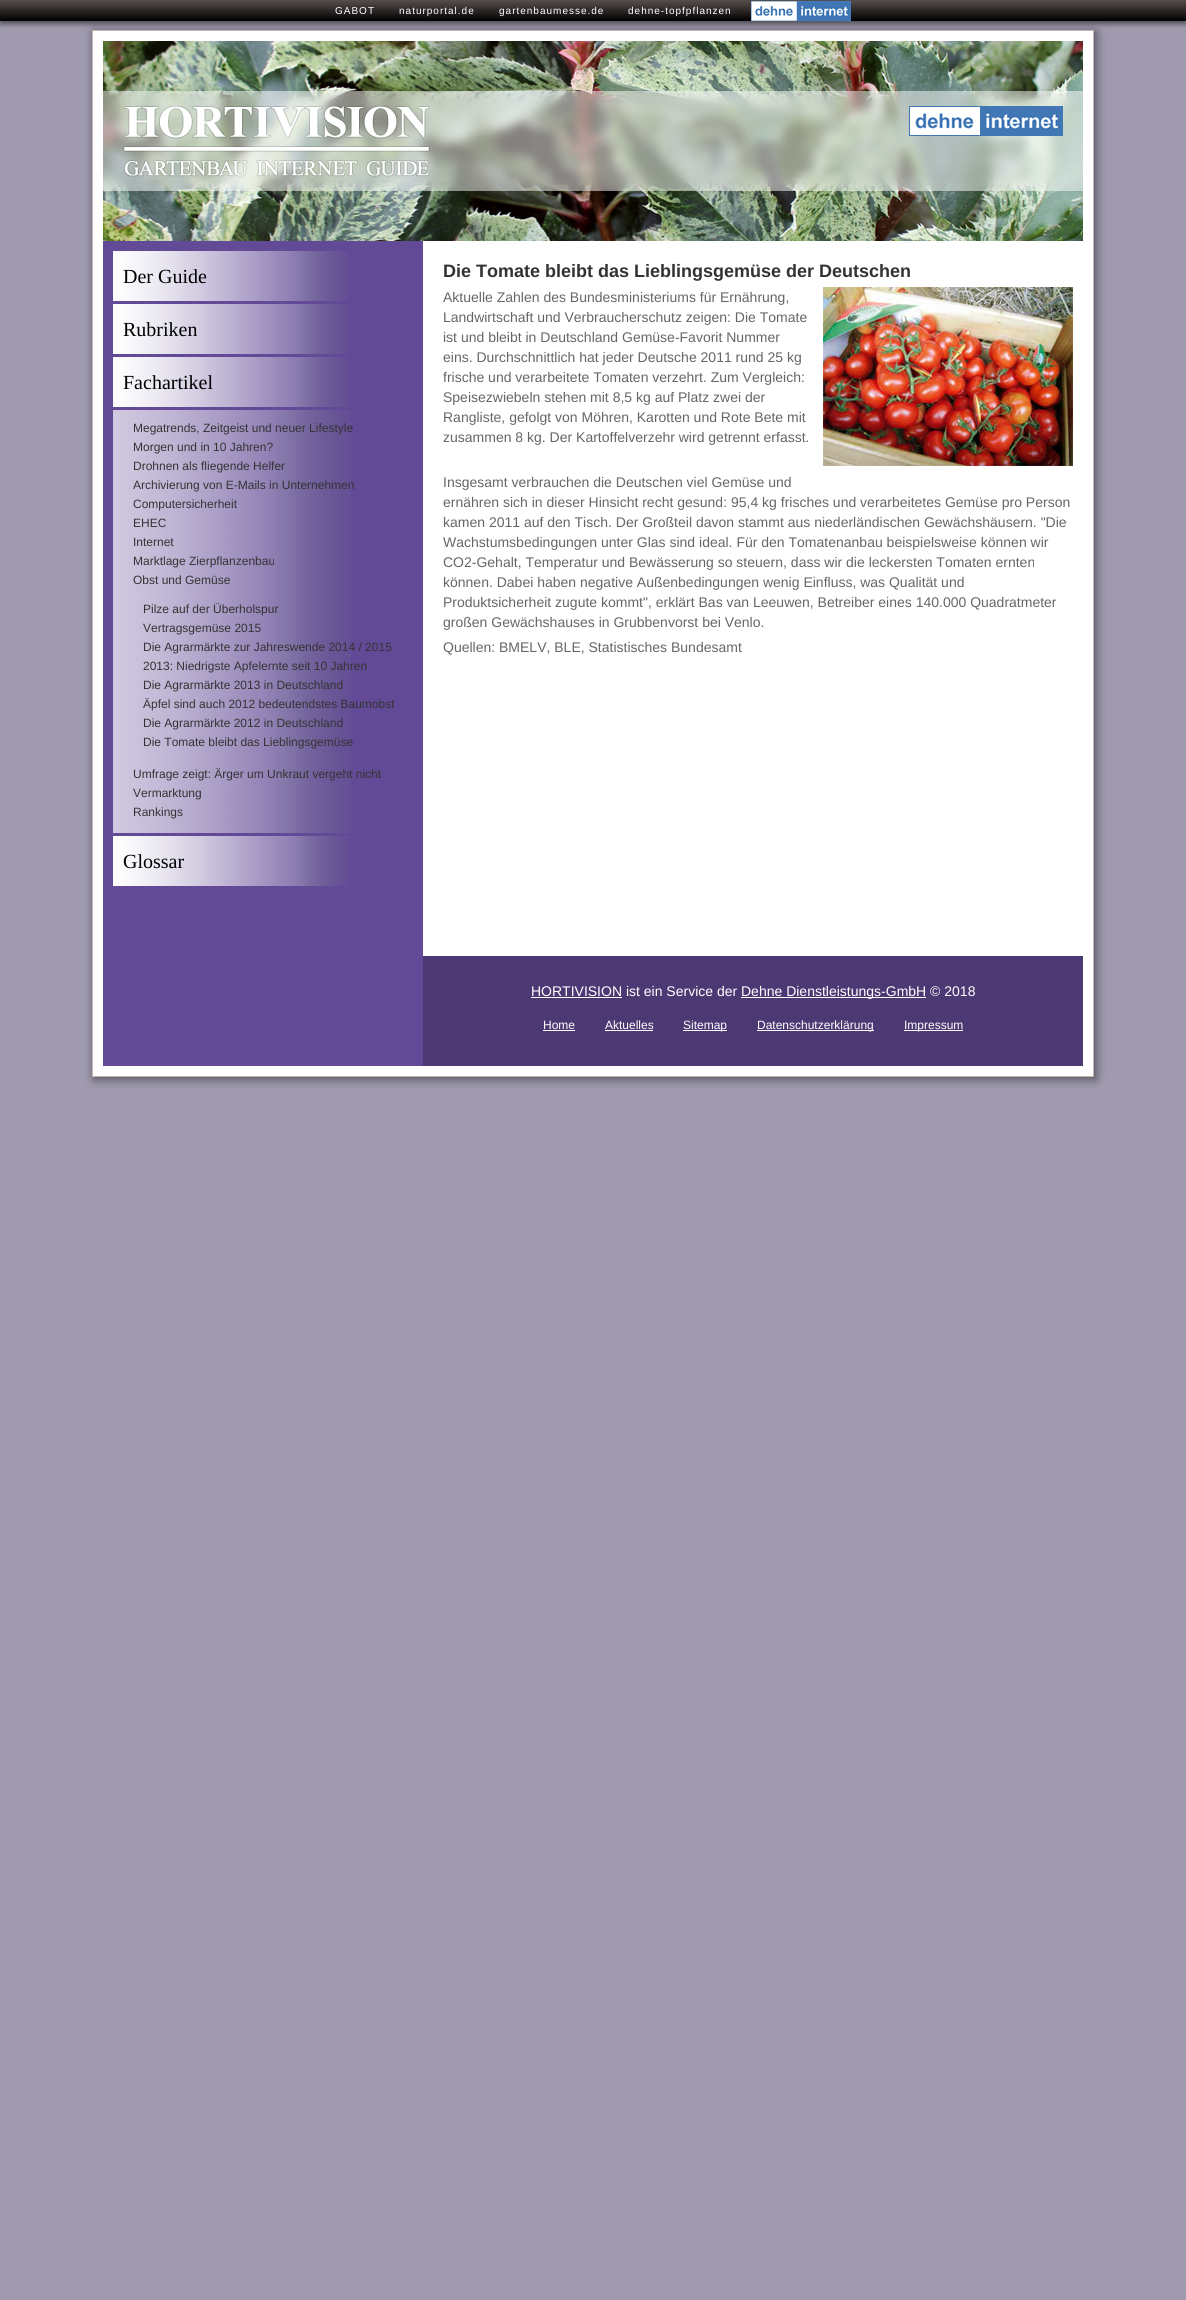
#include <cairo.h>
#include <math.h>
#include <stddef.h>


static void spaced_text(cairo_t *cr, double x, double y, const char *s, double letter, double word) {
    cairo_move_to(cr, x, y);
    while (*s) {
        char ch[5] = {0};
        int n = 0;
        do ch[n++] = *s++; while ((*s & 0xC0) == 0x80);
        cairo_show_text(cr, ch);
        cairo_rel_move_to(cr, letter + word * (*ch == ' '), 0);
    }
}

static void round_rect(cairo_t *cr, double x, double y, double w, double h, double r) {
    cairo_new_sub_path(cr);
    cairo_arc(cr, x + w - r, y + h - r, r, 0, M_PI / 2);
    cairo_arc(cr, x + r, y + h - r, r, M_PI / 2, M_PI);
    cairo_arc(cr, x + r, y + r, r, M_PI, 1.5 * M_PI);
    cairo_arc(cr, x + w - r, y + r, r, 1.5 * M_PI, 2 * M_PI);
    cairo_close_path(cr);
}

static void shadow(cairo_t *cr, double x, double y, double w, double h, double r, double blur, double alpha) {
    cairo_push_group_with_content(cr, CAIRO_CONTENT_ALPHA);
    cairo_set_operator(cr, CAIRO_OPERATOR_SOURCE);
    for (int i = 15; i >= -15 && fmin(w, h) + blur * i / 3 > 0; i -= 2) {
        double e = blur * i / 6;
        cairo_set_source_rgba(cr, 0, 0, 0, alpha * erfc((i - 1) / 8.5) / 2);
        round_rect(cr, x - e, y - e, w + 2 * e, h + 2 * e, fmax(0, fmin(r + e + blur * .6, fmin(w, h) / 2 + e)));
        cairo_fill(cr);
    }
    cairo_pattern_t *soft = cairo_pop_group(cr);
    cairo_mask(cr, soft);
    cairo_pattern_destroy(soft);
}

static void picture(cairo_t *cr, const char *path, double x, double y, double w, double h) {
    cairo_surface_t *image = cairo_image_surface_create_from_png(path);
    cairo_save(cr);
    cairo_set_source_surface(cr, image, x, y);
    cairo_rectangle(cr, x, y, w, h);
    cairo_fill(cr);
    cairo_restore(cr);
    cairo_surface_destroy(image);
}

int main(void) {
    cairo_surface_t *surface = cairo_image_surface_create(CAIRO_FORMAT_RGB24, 1186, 2300);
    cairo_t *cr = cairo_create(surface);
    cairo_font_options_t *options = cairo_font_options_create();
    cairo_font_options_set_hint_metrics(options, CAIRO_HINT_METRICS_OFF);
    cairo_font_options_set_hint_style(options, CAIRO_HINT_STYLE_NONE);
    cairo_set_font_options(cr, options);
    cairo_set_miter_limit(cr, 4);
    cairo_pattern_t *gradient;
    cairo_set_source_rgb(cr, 0.624, 0.604, 0.682);
    cairo_paint(cr);
    cairo_set_source_rgb(cr, 0, 0, 0);
    shadow(cr, 94, 32, 1002, 1047, 0, 5, 0.5);
    cairo_set_source_rgb(cr, 1, 1, 1);
    cairo_rectangle(cr, 92.5, 30.5, 1001, 1046);
    cairo_fill_preserve(cr);
    cairo_set_source_rgb(cr, 0.769, 0.706, 0.698);
    cairo_set_line_width(cr, 1);
    cairo_stroke(cr);
    cairo_set_source_rgb(cr, 0, 0, 0);
    shadow(cr, 0, 3, 1186, 21, 0, 2.5, 0.5);
    gradient = cairo_pattern_create_linear(593, 0, 593, 21);
    cairo_pattern_add_color_stop_rgba(gradient, 0, 0.341, 0.31, 0.302, 1);
    cairo_pattern_add_color_stop_rgba(gradient, 1, 0, 0, 0, 1);
    cairo_set_source(cr, gradient);
    cairo_pattern_destroy(gradient);
    cairo_rectangle(cr, 0, 0, 1186, 21);
    cairo_fill(cr);
    cairo_select_font_face(cr, "Liberation Sans", CAIRO_FONT_SLANT_NORMAL, CAIRO_FONT_WEIGHT_NORMAL);
    cairo_set_font_size(cr, 10);
    cairo_set_source_rgb(cr, 1, 1, 1);
    spaced_text(cr, 335, 14, "GABOT", 1, 0);
    spaced_text(cr, 399, 14, "naturportal.de", 1, 0);
    spaced_text(cr, 499, 14, "gartenbaumesse.de", 1, 0);
    spaced_text(cr, 628, 14, "dehne-topfpflanzen", 1, 0);
    picture(cr, "img1.png", 751, 1, 100, 20);
    picture(cr, "img2.png", 103, 41, 980, 200);
    picture(cr, "img3.png", 123, 106, 307, 71);
    picture(cr, "img4.png", 909, 106, 154, 30);
    cairo_set_source_rgb(cr, 0.384, 0.29, 0.588);
    cairo_rectangle(cr, 103, 241, 320, 825);
    cairo_fill(cr);
    picture(cr, "img5.png", 113, 251, 235, 50);
    cairo_select_font_face(cr, "Liberation Serif", CAIRO_FONT_SLANT_NORMAL, CAIRO_FONT_WEIGHT_NORMAL);
    cairo_set_font_size(cr, 20);
    cairo_set_source_rgb(cr, 0, 0, 0);
    cairo_move_to(cr, 123, 283);
    cairo_show_text(cr, "Der Guide");
    picture(cr, "img5.png", 113, 304, 235, 50);
    cairo_move_to(cr, 123, 336);
    cairo_show_text(cr, "Rubriken");
    picture(cr, "img5.png", 113, 357, 235, 50);
    cairo_move_to(cr, 123, 389);
    cairo_show_text(cr, "Fachartikel");
    picture(cr, "img6.png", 113, 410, 238, 423);
    cairo_select_font_face(cr, "Liberation Sans", CAIRO_FONT_SLANT_NORMAL, CAIRO_FONT_WEIGHT_NORMAL);
    cairo_set_font_size(cr, 12);
    cairo_set_source_rgb(cr, 0.2, 0.2, 0.2);
    cairo_move_to(cr, 133, 432);
    cairo_show_text(cr, "Megatrends, Zeitgeist und neuer Lifestyle");
    cairo_move_to(cr, 133, 451);
    cairo_show_text(cr, "Morgen und in 10 Jahren?");
    cairo_move_to(cr, 133, 470);
    cairo_show_text(cr, "Drohnen als fliegende Helfer");
    cairo_move_to(cr, 133, 489);
    cairo_show_text(cr, "Archivierung von E-Mails in Unternehmen");
    cairo_move_to(cr, 133, 508);
    cairo_show_text(cr, "Computersicherheit");
    cairo_move_to(cr, 133, 527);
    cairo_show_text(cr, "EHEC");
    cairo_move_to(cr, 133, 546);
    cairo_show_text(cr, "Internet");
    cairo_move_to(cr, 133, 565);
    cairo_show_text(cr, "Marktlage Zierpflanzenbau");
    cairo_move_to(cr, 133, 584);
    cairo_show_text(cr, "Obst und Gemüse");
    cairo_move_to(cr, 143, 613);
    cairo_show_text(cr, "Pilze auf der Überholspur");
    cairo_move_to(cr, 143, 632);
    cairo_show_text(cr, "Vertragsgemüse 2015");
    cairo_move_to(cr, 143, 651);
    cairo_show_text(cr, "Die Agrarmärkte zur Jahreswende 2014 / 2015");
    cairo_move_to(cr, 143, 670);
    cairo_show_text(cr, "2013: Niedrigste Apfelernte seit 10 Jahren");
    cairo_move_to(cr, 143, 689);
    cairo_show_text(cr, "Die Agrarmärkte 2013 in Deutschland");
    cairo_move_to(cr, 143, 708);
    cairo_show_text(cr, "Äpfel sind auch 2012 bedeutendstes Baumobst");
    cairo_move_to(cr, 143, 727);
    cairo_show_text(cr, "Die Agrarmärkte 2012 in Deutschland");
    cairo_move_to(cr, 143, 746);
    cairo_show_text(cr, "Die Tomate bleibt das Lieblingsgemüse");
    cairo_move_to(cr, 133, 778);
    cairo_show_text(cr, "Umfrage zeigt: Ärger um Unkraut vergeht nicht");
    cairo_move_to(cr, 133, 797);
    cairo_show_text(cr, "Vermarktung");
    cairo_move_to(cr, 133, 816);
    cairo_show_text(cr, "Rankings");
    picture(cr, "img5.png", 113, 836, 235, 50);
    cairo_select_font_face(cr, "Liberation Serif", CAIRO_FONT_SLANT_NORMAL, CAIRO_FONT_WEIGHT_NORMAL);
    cairo_set_font_size(cr, 20);
    cairo_set_source_rgb(cr, 0, 0, 0);
    cairo_move_to(cr, 123, 868);
    cairo_show_text(cr, "Glossar");
    cairo_select_font_face(cr, "Liberation Sans", CAIRO_FONT_SLANT_NORMAL, CAIRO_FONT_WEIGHT_BOLD);
    cairo_set_font_size(cr, 18);
    cairo_set_source_rgb(cr, 0.2, 0.2, 0.2);
    cairo_move_to(cr, 443, 277);
    cairo_show_text(cr, "Die Tomate bleibt das Lieblingsgemüse der Deutschen");
    picture(cr, "img7.png", 823, 287, 250, 179);
    cairo_select_font_face(cr, "Liberation Sans", CAIRO_FONT_SLANT_NORMAL, CAIRO_FONT_WEIGHT_NORMAL);
    cairo_set_font_size(cr, 14);
    cairo_set_source_rgb(cr, 0.4, 0.4, 0.4);
    cairo_move_to(cr, 443, 302);
    cairo_show_text(cr, "Aktuelle Zahlen des Bundesministeriums für Ernährung,");
    cairo_move_to(cr, 443, 322);
    cairo_show_text(cr, "Landwirtschaft und Verbraucherschutz zeigen: Die Tomate");
    cairo_move_to(cr, 443, 342);
    cairo_show_text(cr, "ist und bleibt in Deutschland Gemüse-Favorit Nummer");
    cairo_move_to(cr, 443, 362);
    cairo_show_text(cr, "eins. Durchschnittlich hat jeder Deutsche 2011 rund 25 kg");
    cairo_move_to(cr, 443, 382);
    cairo_show_text(cr, "frische und verarbeitete Tomaten verzehrt. Zum Vergleich:");
    cairo_move_to(cr, 443, 402);
    cairo_show_text(cr, "Speisezwiebeln stehen mit 8,5 kg auf Platz zwei der");
    cairo_move_to(cr, 443, 422);
    cairo_show_text(cr, "Rangliste, gefolgt von Möhren, Karotten und Rote Bete mit");
    cairo_move_to(cr, 443, 442);
    cairo_show_text(cr, "zusammen 8 kg. Der Kartoffelverzehr wird getrennt erfasst.");
    cairo_move_to(cr, 443, 487);
    cairo_show_text(cr, "Insgesamt verbrauchen die Deutschen viel Gemüse und");
    cairo_move_to(cr, 443, 507);
    cairo_show_text(cr, "ernähren sich in dieser Hinsicht recht gesund: 95,4 kg frisches und verarbeitetes Gemüse pro Person");
    cairo_move_to(cr, 443, 527);
    cairo_show_text(cr, "kamen 2011 auf den Tisch. Der Großteil davon stammt aus niederländischen Gewächshäusern. \"Die");
    cairo_move_to(cr, 443, 547);
    cairo_show_text(cr, "Wachstumsbedingungen unter Glas sind ideal. Für den Tomatenanbau beispielsweise können wir");
    cairo_move_to(cr, 443, 567);
    cairo_show_text(cr, "CO2-Gehalt, Temperatur und Bewässerung so steuern, dass wir die leckersten Tomaten ernten");
    cairo_move_to(cr, 443, 587);
    cairo_show_text(cr, "können. Dabei haben negative Außenbedingungen wenig Einfluss, was Qualität und");
    cairo_move_to(cr, 443, 607);
    cairo_show_text(cr, "Produktsicherheit zugute kommt\", erklärt Bas van Leeuwen, Betreiber eines 140.000 Quadratmeter");
    cairo_move_to(cr, 443, 627);
    cairo_show_text(cr, "großen Gewächshauses in Grubbenvorst bei Venlo.");
    cairo_move_to(cr, 443, 652);
    cairo_show_text(cr, "Quellen: BMELV, BLE, Statistisches Bundesamt");
    cairo_set_source_rgb(cr, 0.298, 0.224, 0.455);
    cairo_rectangle(cr, 423, 956, 660, 110);
    cairo_fill(cr);
    cairo_set_source_rgb(cr, 1, 1, 1);
    cairo_move_to(cr, 531, 996);
    cairo_show_text(cr, "HORTIVISION ist ein Service der");
    cairo_rectangle(cr, 531, 997, 91, 1);
    cairo_fill(cr);
    cairo_rectangle(cr, 741, 997, 185, 1);
    cairo_fill(cr);
    cairo_move_to(cr, 741, 996);
    cairo_show_text(cr, "Dehne Dienstleistungs-GmbH © 2018");
    cairo_set_font_size(cr, 12);
    cairo_move_to(cr, 543, 1029);
    cairo_show_text(cr, "Home");
    cairo_rectangle(cr, 543, 1030, 32, 1);
    cairo_fill(cr);
    cairo_move_to(cr, 605, 1029);
    cairo_show_text(cr, "Aktuelles");
    cairo_rectangle(cr, 605, 1030, 48, 1);
    cairo_fill(cr);
    cairo_rectangle(cr, 683, 1030, 44, 1);
    cairo_fill(cr);
    cairo_move_to(cr, 683, 1029);
    cairo_show_text(cr, "Sitemap");
    cairo_rectangle(cr, 757, 1030, 117, 1);
    cairo_fill(cr);
    cairo_move_to(cr, 757, 1029);
    cairo_show_text(cr, "Datenschutzerklärung");
    cairo_rectangle(cr, 904, 1030, 59, 1);
    cairo_fill(cr);
    cairo_move_to(cr, 904, 1029);
    cairo_show_text(cr, "Impressum");
    cairo_surface_write_to_png(surface, "page.png");
    cairo_font_options_destroy(options);
    cairo_destroy(cr);
    cairo_surface_destroy(surface);
    return 0;
}
